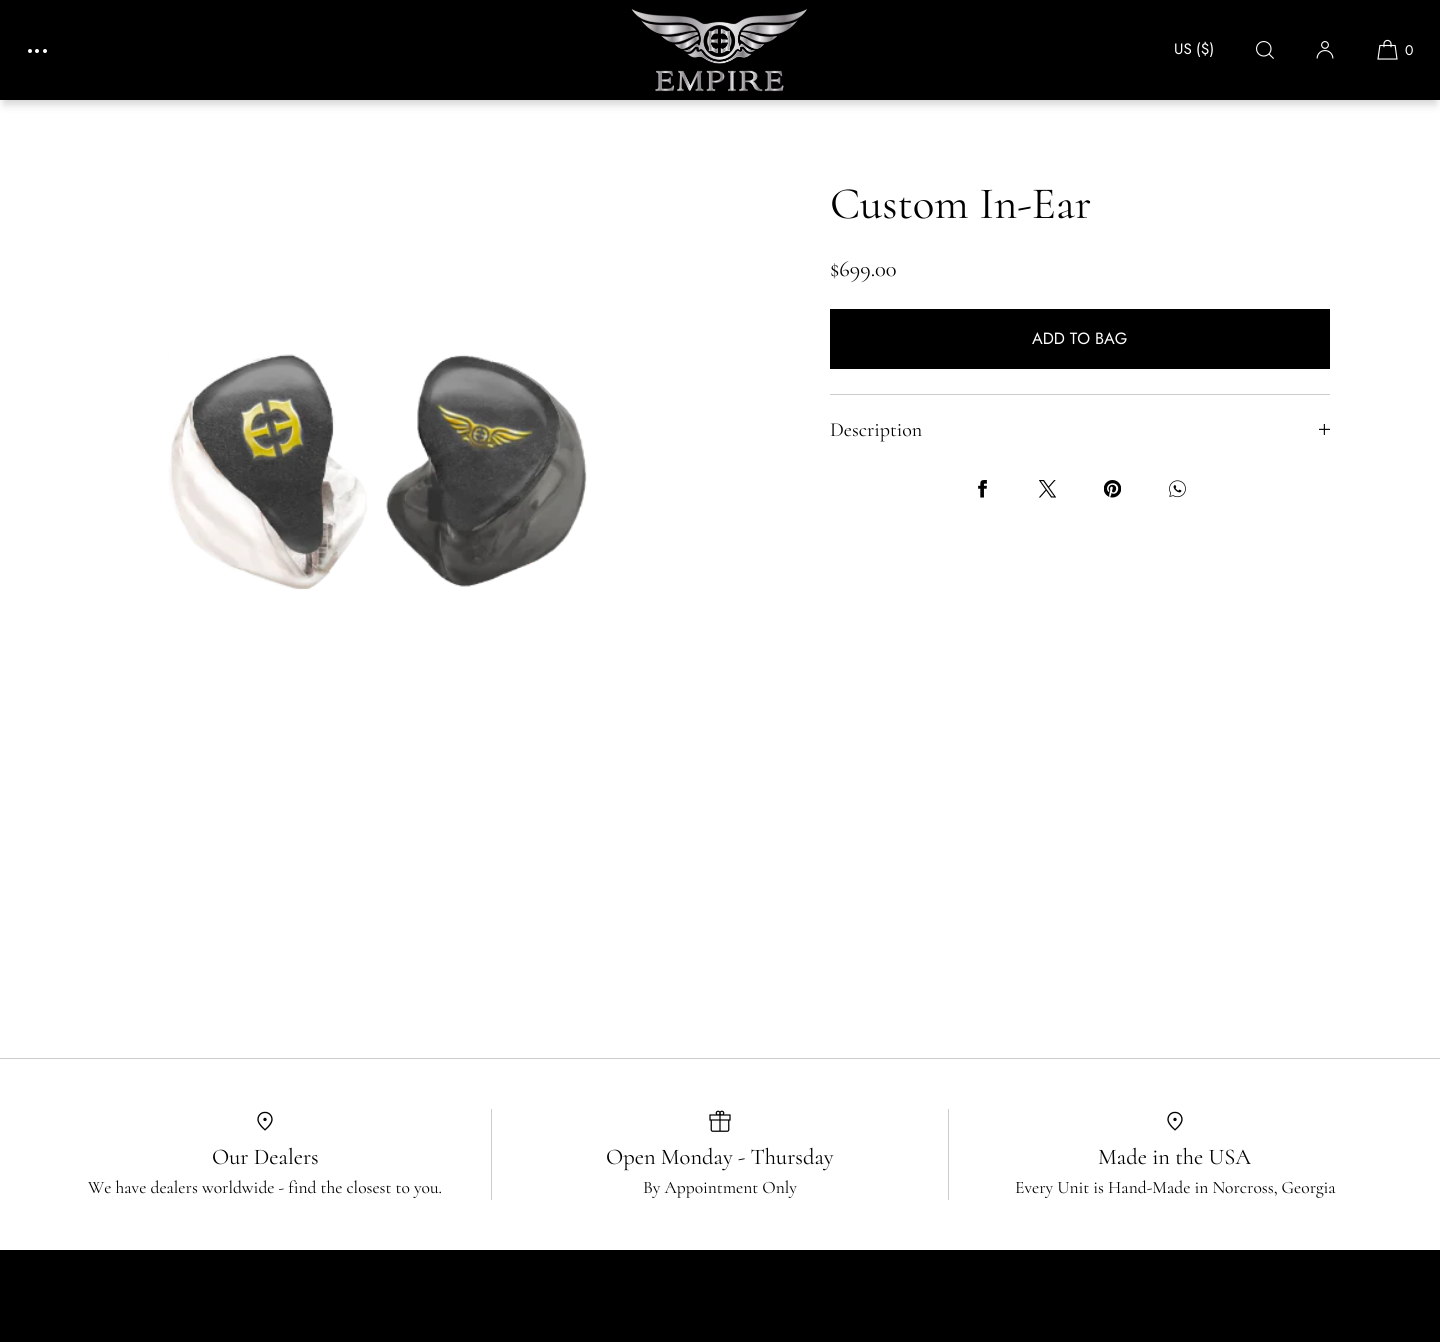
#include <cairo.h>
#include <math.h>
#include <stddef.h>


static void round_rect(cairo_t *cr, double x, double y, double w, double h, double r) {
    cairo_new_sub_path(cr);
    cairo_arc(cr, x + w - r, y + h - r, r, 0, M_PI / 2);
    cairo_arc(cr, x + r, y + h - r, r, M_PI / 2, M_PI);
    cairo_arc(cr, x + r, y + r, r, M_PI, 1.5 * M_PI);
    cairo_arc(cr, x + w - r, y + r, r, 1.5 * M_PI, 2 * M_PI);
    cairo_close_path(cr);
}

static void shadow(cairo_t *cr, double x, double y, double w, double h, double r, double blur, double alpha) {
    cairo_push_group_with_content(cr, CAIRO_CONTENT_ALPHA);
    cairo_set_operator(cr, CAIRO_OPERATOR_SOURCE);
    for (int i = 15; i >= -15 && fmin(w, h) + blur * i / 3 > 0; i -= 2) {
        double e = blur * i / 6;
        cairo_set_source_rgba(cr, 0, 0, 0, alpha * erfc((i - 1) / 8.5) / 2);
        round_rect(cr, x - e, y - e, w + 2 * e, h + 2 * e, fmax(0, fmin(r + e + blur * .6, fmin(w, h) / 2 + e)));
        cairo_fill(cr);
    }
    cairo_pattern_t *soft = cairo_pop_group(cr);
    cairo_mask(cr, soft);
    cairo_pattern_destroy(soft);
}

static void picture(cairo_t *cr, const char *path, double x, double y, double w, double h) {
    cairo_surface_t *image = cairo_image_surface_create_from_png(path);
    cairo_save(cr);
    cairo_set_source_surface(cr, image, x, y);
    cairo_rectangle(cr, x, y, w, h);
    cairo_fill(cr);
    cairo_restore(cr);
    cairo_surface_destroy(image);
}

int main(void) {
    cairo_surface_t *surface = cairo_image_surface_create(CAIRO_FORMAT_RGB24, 1440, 1342);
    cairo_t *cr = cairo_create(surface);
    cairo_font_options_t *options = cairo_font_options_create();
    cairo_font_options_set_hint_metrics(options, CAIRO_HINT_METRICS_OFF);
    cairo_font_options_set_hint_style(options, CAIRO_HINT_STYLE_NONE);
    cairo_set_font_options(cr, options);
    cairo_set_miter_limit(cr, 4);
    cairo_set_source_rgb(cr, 1, 1, 1);
    cairo_paint(cr);
    cairo_set_source_rgb(cr, 0, 0, 0);
    shadow(cr, 4, 11, 1432, 93, 0, 4.5, 0.18);
    cairo_set_source_rgb(cr, 0, 0, 0);
    cairo_rectangle(cr, 0, 0, 1440, 100);
    cairo_fill(cr);
    cairo_set_source_rgb(cr, 1, 1, 1);
    cairo_arc(cr, 30, 51, 2, 0, 2 * M_PI);
    cairo_fill(cr);
    cairo_arc(cr, 37, 51, 2, 0, 2 * M_PI);
    cairo_fill(cr);
    cairo_arc(cr, 45, 51, 2, 0, 2 * M_PI);
    cairo_fill(cr);
    picture(cr, "img1.png", 631, 9, 176, 83);
    cairo_select_font_face(cr, "Jost", CAIRO_FONT_SLANT_NORMAL, CAIRO_FONT_WEIGHT_NORMAL);
    cairo_set_font_size(cr, 15);
    cairo_move_to(cr, 1174, 54);
    cairo_show_text(cr, "US ($)");
    picture(cr, "img2.png", 1256, 41, 18, 18);
    picture(cr, "img3.png", 1316, 41, 18, 18);
    picture(cr, "img4.png", 1377, 39, 21, 21);
    cairo_set_font_size(cr, 14);
    cairo_move_to(cr, 1405, 55);
    cairo_show_text(cr, "0");
    cairo_select_font_face(cr, "Cormorant", CAIRO_FONT_SLANT_NORMAL, CAIRO_FONT_WEIGHT_NORMAL);
    cairo_set_font_size(cr, 45);
    cairo_set_source_rgb(cr, 0, 0, 0);
    cairo_move_to(cr, 830, 218);
    cairo_show_text(cr, "Custom In-Ear");
    cairo_set_font_size(cr, 22.5);
    cairo_move_to(cr, 830, 276);
    cairo_show_text(cr, "$699.00");
    cairo_rectangle(cr, 830, 309, 500, 60);
    cairo_fill(cr);
    cairo_select_font_face(cr, "Jost", CAIRO_FONT_SLANT_NORMAL, CAIRO_FONT_WEIGHT_NORMAL);
    cairo_set_font_size(cr, 16.25);
    cairo_set_source_rgb(cr, 1, 1, 1);
    cairo_move_to(cr, 1032, 344);
    cairo_show_text(cr, "ADD TO BAG");
    cairo_set_source_rgb(cr, 0.8, 0.8, 0.8);
    cairo_rectangle(cr, 830, 394, 500, 1);
    cairo_fill(cr);
    cairo_select_font_face(cr, "Cormorant", CAIRO_FONT_SLANT_NORMAL, CAIRO_FONT_WEIGHT_NORMAL);
    cairo_set_font_size(cr, 20);
    cairo_set_source_rgb(cr, 0, 0, 0);
    cairo_move_to(cr, 830, 436);
    cairo_show_text(cr, "Description");
    picture(cr, "img5.png", 1319, 424, 11, 11);
    picture(cr, "img6.png", 978, 480, 9, 18);
    picture(cr, "img7.png", 1039, 480, 17, 18);
    picture(cr, "img8.png", 1104, 480, 17, 18);
    picture(cr, "img9.png", 1169, 480, 17, 18);
    picture(cr, "img10.png", 168, 354, 419, 236);
    cairo_set_source_rgb(cr, 0.8, 0.8, 0.8);
    cairo_rectangle(cr, 0, 1058, 1440, 1);
    cairo_fill(cr);
    picture(cr, "img11.png", 257, 1111, 16, 20);
    cairo_rectangle(cr, 491, 1109, 1, 91);
    cairo_fill(cr);
    cairo_set_font_size(cr, 22.5);
    cairo_set_source_rgb(cr, 0, 0, 0);
    cairo_move_to(cr, 212, 1164);
    cairo_show_text(cr, "Our Dealers");
    cairo_set_font_size(cr, 17.5);
    cairo_move_to(cr, 88, 1193);
    cairo_show_text(cr, "We have dealers worldwide - find the closest to you.");
    picture(cr, "img12.png", 709, 1110, 22, 22);
    cairo_set_font_size(cr, 22.5);
    cairo_move_to(cr, 606, 1164);
    cairo_show_text(cr, "Open Monday - Thursday");
    cairo_set_font_size(cr, 17.5);
    cairo_move_to(cr, 643, 1193);
    cairo_show_text(cr, "By Appointment Only");
    cairo_set_source_rgb(cr, 0.8, 0.8, 0.8);
    cairo_rectangle(cr, 948, 1109, 1, 91);
    cairo_fill(cr);
    picture(cr, "img11.png", 1167, 1111, 16, 20);
    cairo_set_font_size(cr, 22.5);
    cairo_set_source_rgb(cr, 0, 0, 0);
    cairo_move_to(cr, 1098, 1164);
    cairo_show_text(cr, "Made in the USA");
    cairo_set_font_size(cr, 17.5);
    cairo_move_to(cr, 1015, 1193);
    cairo_show_text(cr, "Every Unit is Hand-Made in Norcross, Georgia");
    cairo_rectangle(cr, 0, 1250, 1440, 92);
    cairo_fill(cr);
    cairo_surface_write_to_png(surface, "page.png");
    cairo_font_options_destroy(options);
    cairo_destroy(cr);
    cairo_surface_destroy(surface);
    return 0;
}
